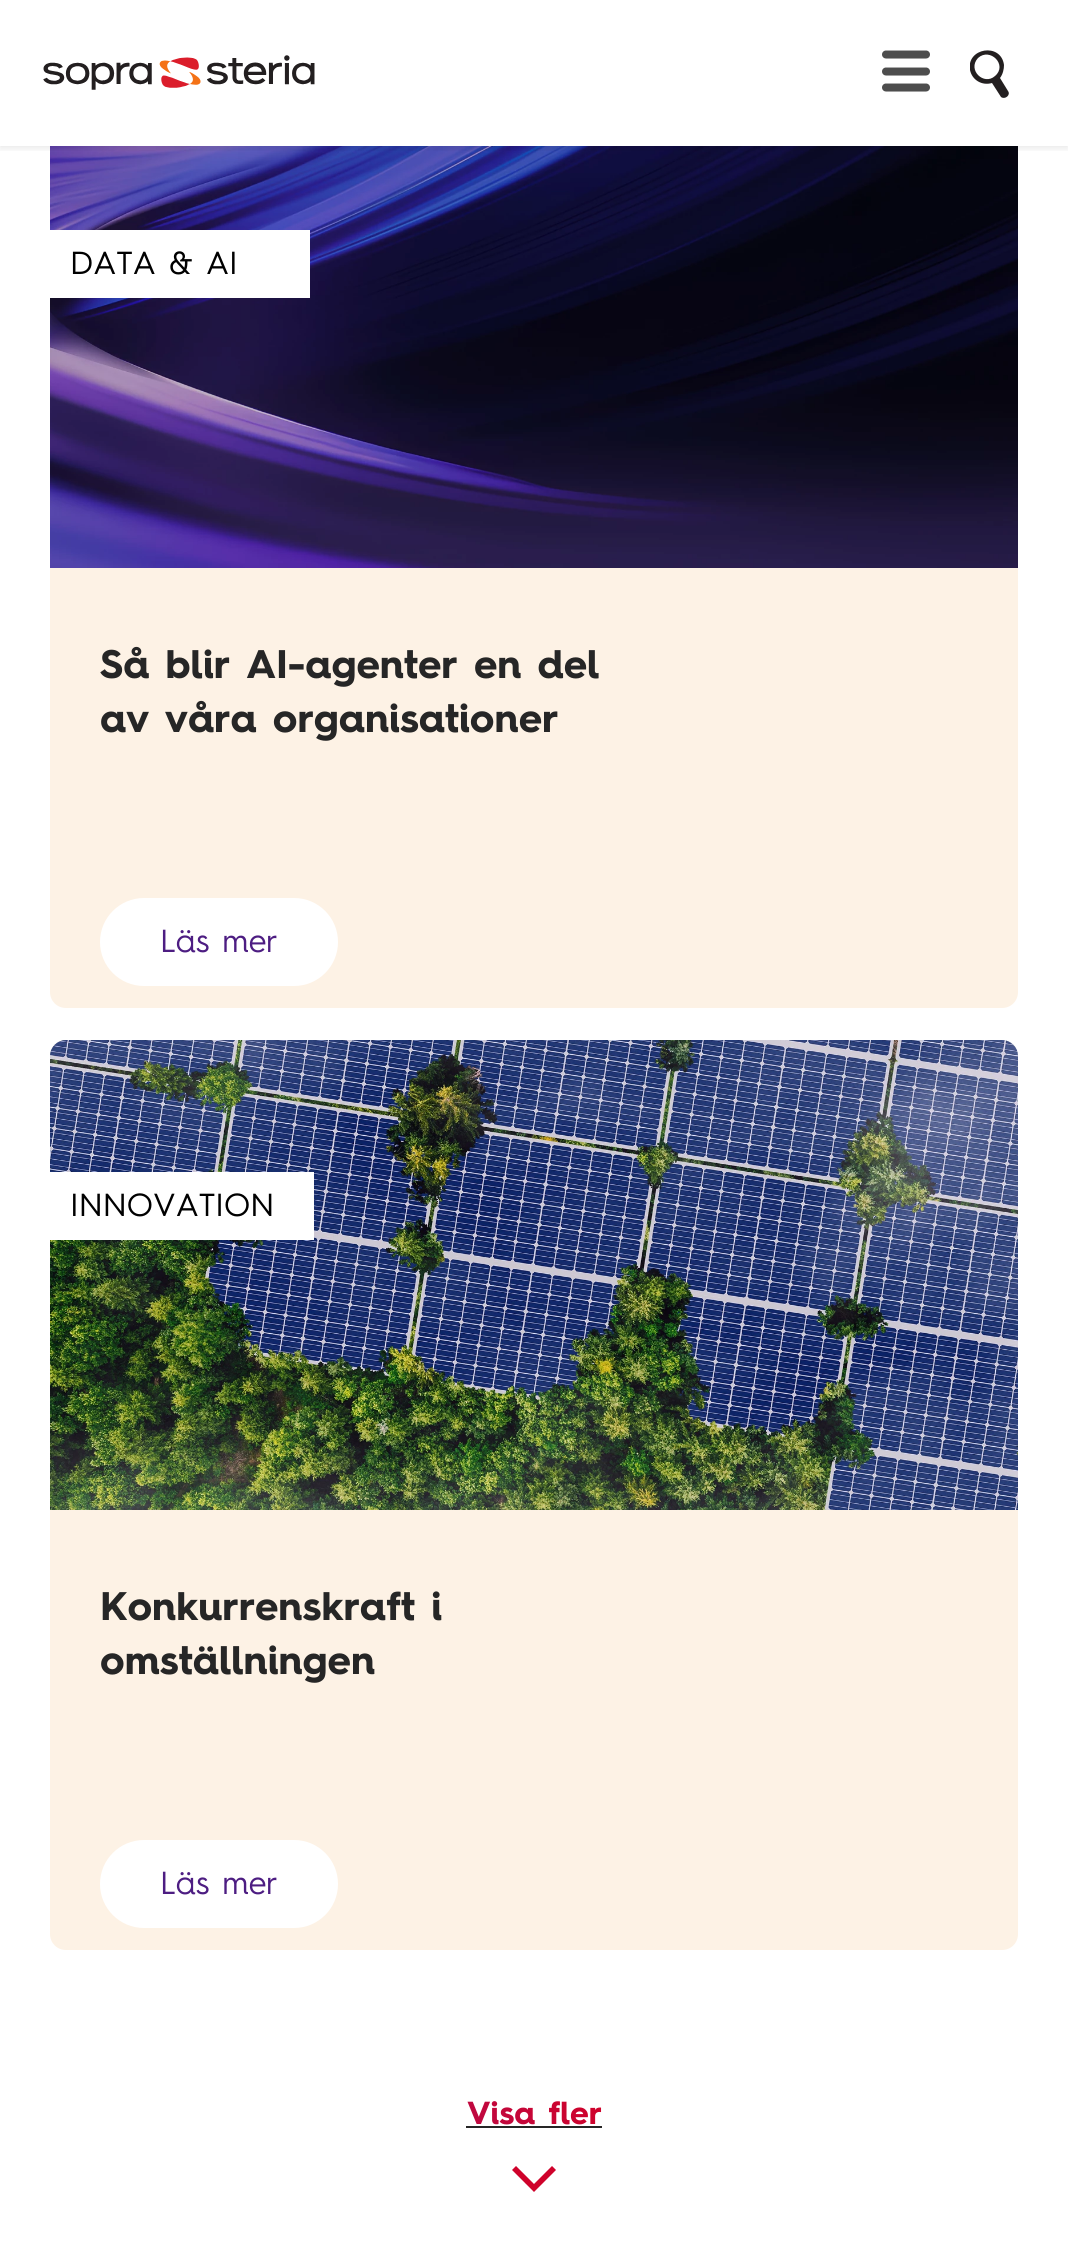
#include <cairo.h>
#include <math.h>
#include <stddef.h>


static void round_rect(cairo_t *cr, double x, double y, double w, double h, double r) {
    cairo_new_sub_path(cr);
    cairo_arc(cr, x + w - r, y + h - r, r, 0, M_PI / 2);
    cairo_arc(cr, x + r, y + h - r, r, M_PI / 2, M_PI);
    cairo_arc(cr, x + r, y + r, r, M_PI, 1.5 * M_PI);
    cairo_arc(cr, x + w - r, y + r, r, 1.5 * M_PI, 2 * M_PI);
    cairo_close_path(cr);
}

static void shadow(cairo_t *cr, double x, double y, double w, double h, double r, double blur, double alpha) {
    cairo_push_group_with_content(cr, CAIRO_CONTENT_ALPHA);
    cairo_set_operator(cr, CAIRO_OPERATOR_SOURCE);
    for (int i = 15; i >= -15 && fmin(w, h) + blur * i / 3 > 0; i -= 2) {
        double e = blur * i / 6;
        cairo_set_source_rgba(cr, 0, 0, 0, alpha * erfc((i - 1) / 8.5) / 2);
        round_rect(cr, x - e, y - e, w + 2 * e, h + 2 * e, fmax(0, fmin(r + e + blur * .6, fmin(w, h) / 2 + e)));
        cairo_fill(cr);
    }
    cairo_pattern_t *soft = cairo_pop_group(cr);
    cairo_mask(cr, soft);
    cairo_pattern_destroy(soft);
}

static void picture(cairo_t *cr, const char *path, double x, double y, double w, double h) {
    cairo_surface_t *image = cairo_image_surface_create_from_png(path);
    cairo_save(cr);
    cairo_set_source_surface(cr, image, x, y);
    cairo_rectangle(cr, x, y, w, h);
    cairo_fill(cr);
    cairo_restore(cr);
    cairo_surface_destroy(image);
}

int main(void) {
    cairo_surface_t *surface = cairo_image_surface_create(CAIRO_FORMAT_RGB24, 1068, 2258);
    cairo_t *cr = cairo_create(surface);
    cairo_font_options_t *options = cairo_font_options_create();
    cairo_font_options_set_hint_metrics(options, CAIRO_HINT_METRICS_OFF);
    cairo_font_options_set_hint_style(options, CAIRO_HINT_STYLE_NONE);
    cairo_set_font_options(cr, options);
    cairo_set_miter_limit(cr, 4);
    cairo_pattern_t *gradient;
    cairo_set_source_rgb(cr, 1, 1, 1);
    cairo_paint(cr);
    picture(cr, "img2.png", 50, 146, 968, 422);
    cairo_save(cr);
    cairo_rectangle(cr, 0, 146, 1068, 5);
    cairo_clip(cr);
    cairo_set_source_rgb(cr, 0, 0, 0);
    shadow(cr, 0, 2, 1068, 146, 0, 4, 0.1);
    cairo_restore(cr);
    picture(cr, "img1.png", 43, 55, 272, 35);
    cairo_new_path(cr);
    cairo_move_to(cr, 886, 54.5);
    cairo_line_to(cr, 926, 54.5);
    cairo_move_to(cr, 886, 71.5);
    cairo_line_to(cr, 926, 71.5);
    cairo_move_to(cr, 886, 87.5);
    cairo_line_to(cr, 926, 87.5);
    cairo_set_source_rgb(cr, 0.302, 0.302, 0.302);
    cairo_set_line_width(cr, 8);
    cairo_set_line_cap(cr, CAIRO_LINE_CAP_ROUND);
    cairo_stroke(cr);
    cairo_save(cr);
    cairo_rectangle(cr, 970, 50, 40, 48);
    cairo_clip(cr);
    cairo_set_source_rgb(cr, 0.137, 0.122, 0.125);
    cairo_new_path(cr);
    cairo_move_to(cr, 1008, 91);
    cairo_line_to(cr, 1000, 78);
    cairo_curve_to(cr, 1003, 74, 1004, 69, 1004, 65);
    cairo_curve_to(cr, 1001, 42, 966, 48, 970, 70);
    cairo_curve_to(cr, 972, 80, 982, 86, 992, 83);
    cairo_line_to(cr, 1001, 97);
    cairo_curve_to(cr, 1005, 100, 1011, 95, 1008, 91);
    cairo_close_path(cr);
    cairo_move_to(cr, 995, 76);
    cairo_curve_to(cr, 984, 86, 967, 70, 978, 58);
    cairo_curve_to(cr, 990, 47, 1008, 65, 995, 76);
    cairo_close_path(cr);
    cairo_fill(cr);
    cairo_restore(cr);
    cairo_set_source_rgb(cr, 1, 1, 1);
    cairo_rectangle(cr, 50, 230, 260, 68);
    cairo_fill(cr);
    cairo_select_font_face(cr, "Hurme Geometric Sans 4", CAIRO_FONT_SLANT_NORMAL, CAIRO_FONT_WEIGHT_NORMAL);
    cairo_set_font_size(cr, 32);
    cairo_set_source_rgb(cr, 0, 0, 0);
    cairo_move_to(cr, 70, 274);
    cairo_show_text(cr, "DATA & AI");
    cairo_set_source_rgb(cr, 0.992, 0.949, 0.898);
    cairo_new_path(cr);
    cairo_move_to(cr, 50, 568);
    cairo_line_to(cr, 1018, 568);
    cairo_line_to(cr, 1018, 992);
    cairo_curve_to(cr, 1018, 1001, 1011, 1008, 1002, 1008);
    cairo_line_to(cr, 66, 1008);
    cairo_curve_to(cr, 57, 1008, 50, 1001, 50, 992);
    cairo_close_path(cr);
    cairo_fill(cr);
    cairo_select_font_face(cr, "Hurme Geometric Sans 4", CAIRO_FONT_SLANT_NORMAL, CAIRO_FONT_WEIGHT_BOLD);
    cairo_set_font_size(cr, 40);
    cairo_set_source_rgb(cr, 0.149, 0.149, 0.149);
    cairo_move_to(cr, 100, 678);
    cairo_show_text(cr, "Så blir AI-agenter en del");
    cairo_move_to(cr, 100, 732);
    cairo_show_text(cr, "av våra organisationer");
    cairo_set_source_rgb(cr, 1, 1, 1);
    round_rect(cr, 100, 898, 238, 88, 44);
    cairo_fill(cr);
    cairo_select_font_face(cr, "Hurme Geometric Sans 4", CAIRO_FONT_SLANT_NORMAL, CAIRO_FONT_WEIGHT_NORMAL);
    cairo_set_font_size(cr, 32);
    cairo_set_source_rgb(cr, 0.302, 0.114, 0.51);
    cairo_move_to(cr, 160, 952);
    cairo_show_text(cr, "Läs mer");
    cairo_set_source_rgb(cr, 0.863, 0.863, 0.863);
    cairo_new_path(cr);
    cairo_move_to(cr, 66, 1040);
    cairo_line_to(cr, 1002, 1040);
    cairo_curve_to(cr, 1011, 1040, 1018, 1047, 1018, 1056);
    cairo_line_to(cr, 1018, 1510);
    cairo_line_to(cr, 50, 1510);
    cairo_line_to(cr, 50, 1056);
    cairo_curve_to(cr, 50, 1047, 57, 1040, 66, 1040);
    cairo_close_path(cr);
    cairo_fill(cr);
    picture(cr, "img3.png", 50, 1040, 968, 470);
    cairo_set_source_rgb(cr, 1, 1, 1);
    cairo_rectangle(cr, 50, 1172, 264, 68);
    cairo_fill(cr);
    cairo_set_source_rgb(cr, 0, 0, 0);
    cairo_move_to(cr, 70, 1216);
    cairo_show_text(cr, "INNOVATION");
    cairo_set_source_rgb(cr, 0.992, 0.949, 0.898);
    cairo_new_path(cr);
    cairo_move_to(cr, 50, 1510);
    cairo_line_to(cr, 1018, 1510);
    cairo_line_to(cr, 1018, 1934);
    cairo_curve_to(cr, 1018, 1943, 1011, 1950, 1002, 1950);
    cairo_line_to(cr, 66, 1950);
    cairo_curve_to(cr, 57, 1950, 50, 1943, 50, 1934);
    cairo_close_path(cr);
    cairo_fill(cr);
    cairo_select_font_face(cr, "Hurme Geometric Sans 4", CAIRO_FONT_SLANT_NORMAL, CAIRO_FONT_WEIGHT_BOLD);
    cairo_set_font_size(cr, 40);
    cairo_set_source_rgb(cr, 0.149, 0.149, 0.149);
    cairo_move_to(cr, 100, 1620);
    cairo_show_text(cr, "Konkurrenskraft i");
    cairo_move_to(cr, 100, 1674);
    cairo_show_text(cr, "omställningen");
    cairo_set_source_rgb(cr, 1, 1, 1);
    round_rect(cr, 100, 1840, 238, 88, 44);
    cairo_fill(cr);
    cairo_select_font_face(cr, "Hurme Geometric Sans 4", CAIRO_FONT_SLANT_NORMAL, CAIRO_FONT_WEIGHT_NORMAL);
    cairo_set_font_size(cr, 32);
    cairo_set_source_rgb(cr, 0.302, 0.114, 0.51);
    cairo_move_to(cr, 160, 1894);
    cairo_show_text(cr, "Läs mer");
    cairo_select_font_face(cr, "Hurme Geometric Sans 4", CAIRO_FONT_SLANT_NORMAL, CAIRO_FONT_WEIGHT_BOLD);
    gradient = cairo_pattern_create_linear(259, 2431, 809, 1881);
    cairo_pattern_add_color_stop_rgba(gradient, 0, 0.302, 0.114, 0.51, 1);
    cairo_pattern_add_color_stop_rgba(gradient, 0.1, 0.545, 0.114, 0.51, 1);
    cairo_pattern_add_color_stop_rgba(gradient, 0.6, 0.812, 0.008, 0.169, 1);
    cairo_pattern_add_color_stop_rgba(gradient, 1, 0.941, 0.49, 0, 1);
    cairo_set_source(cr, gradient);
    cairo_pattern_destroy(gradient);
    cairo_move_to(cr, 467, 2124);
    cairo_show_text(cr, "Visa fler");
    cairo_set_source_rgb(cr, 0.149, 0.149, 0.149);
    cairo_rectangle(cr, 466, 2126, 136, 2);
    cairo_fill(cr);
    cairo_set_source_rgb(cr, 0.812, 0.008, 0.169);
    cairo_new_path(cr);
    cairo_move_to(cr, 534, 2184);
    cairo_line_to(cr, 516, 2166);
    cairo_line_to(cr, 512, 2170);
    cairo_line_to(cr, 534, 2192);
    cairo_line_to(cr, 556, 2170);
    cairo_line_to(cr, 552, 2166);
    cairo_close_path(cr);
    cairo_fill(cr);
    cairo_surface_write_to_png(surface, "page.png");
    cairo_font_options_destroy(options);
    cairo_destroy(cr);
    cairo_surface_destroy(surface);
    return 0;
}
